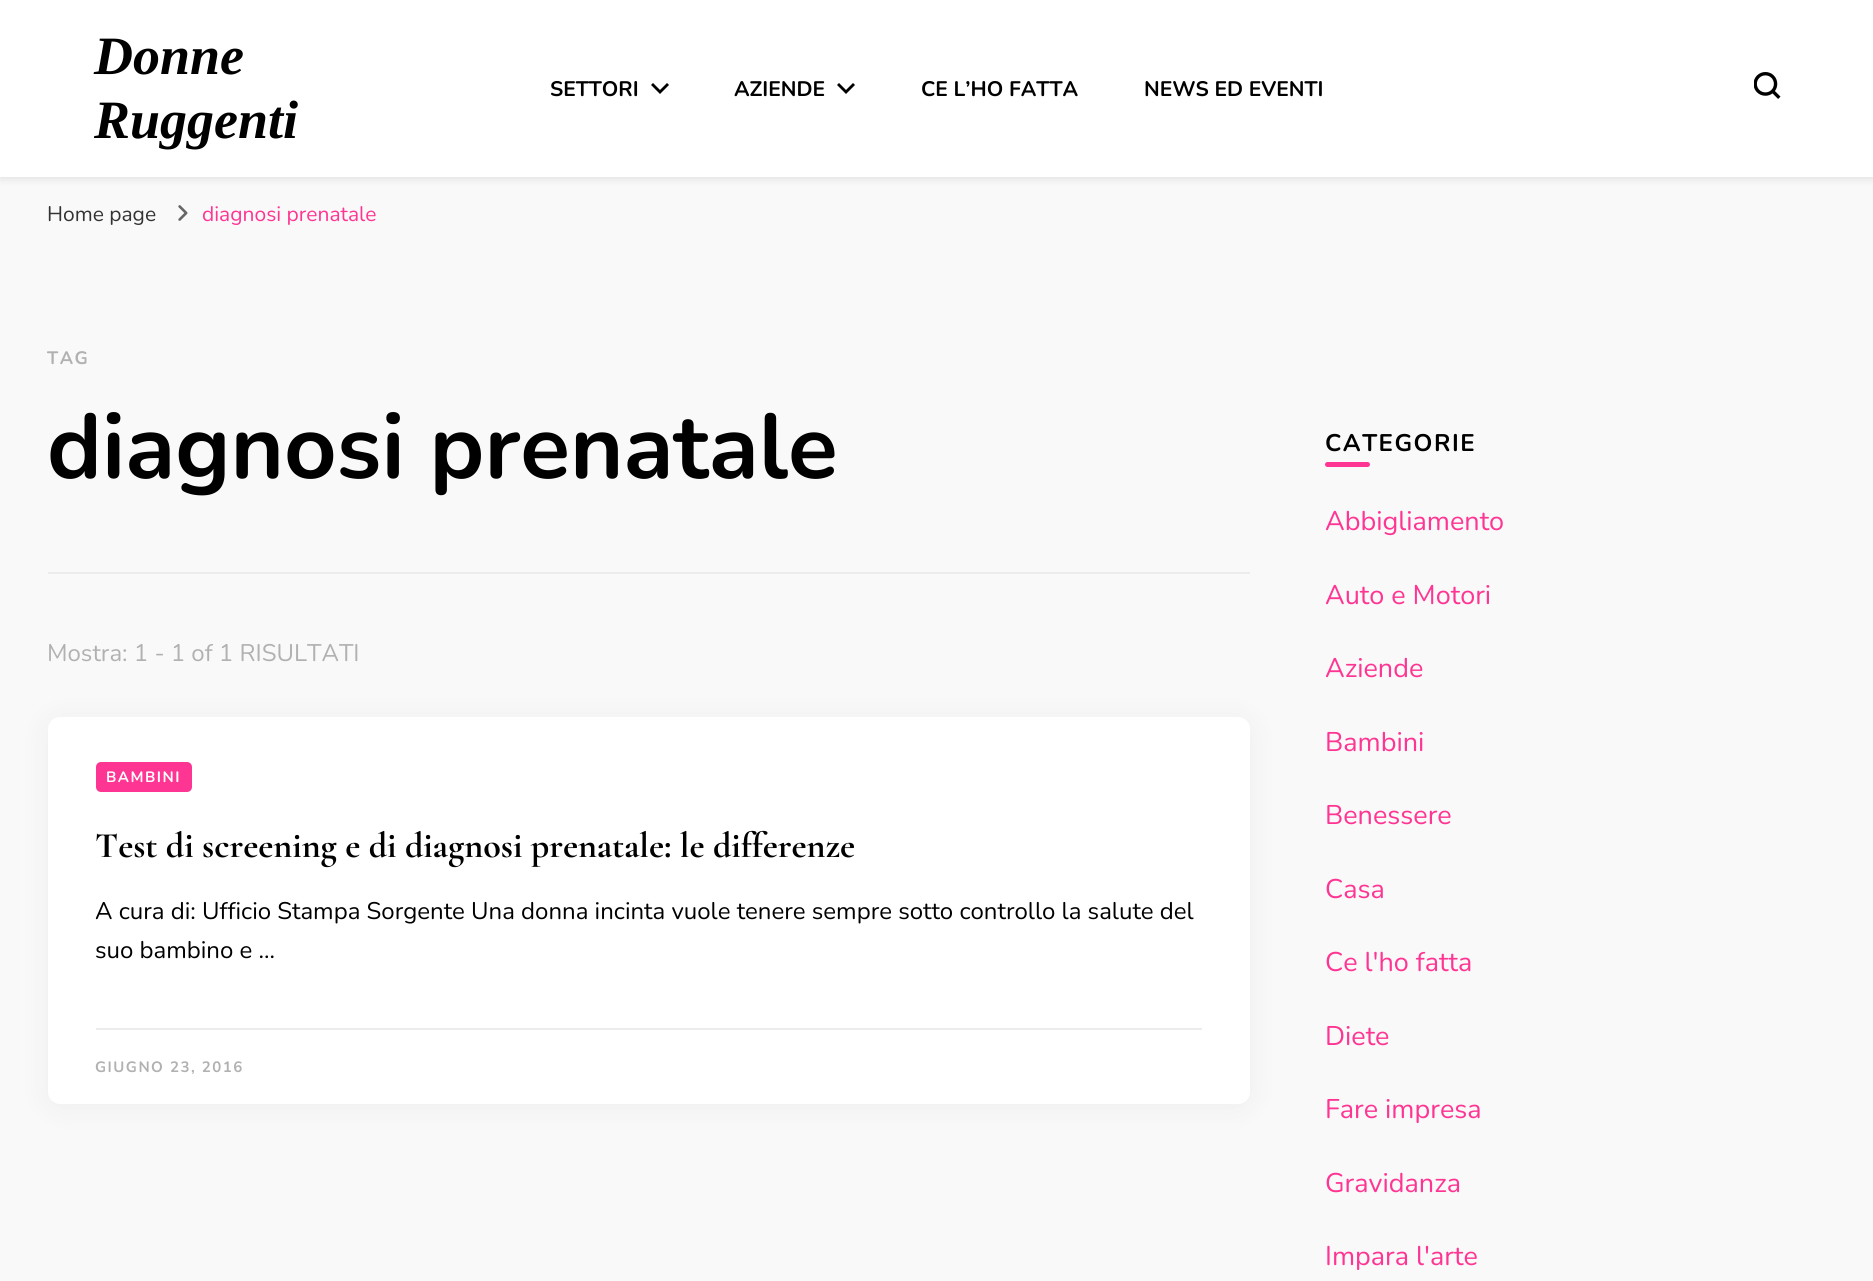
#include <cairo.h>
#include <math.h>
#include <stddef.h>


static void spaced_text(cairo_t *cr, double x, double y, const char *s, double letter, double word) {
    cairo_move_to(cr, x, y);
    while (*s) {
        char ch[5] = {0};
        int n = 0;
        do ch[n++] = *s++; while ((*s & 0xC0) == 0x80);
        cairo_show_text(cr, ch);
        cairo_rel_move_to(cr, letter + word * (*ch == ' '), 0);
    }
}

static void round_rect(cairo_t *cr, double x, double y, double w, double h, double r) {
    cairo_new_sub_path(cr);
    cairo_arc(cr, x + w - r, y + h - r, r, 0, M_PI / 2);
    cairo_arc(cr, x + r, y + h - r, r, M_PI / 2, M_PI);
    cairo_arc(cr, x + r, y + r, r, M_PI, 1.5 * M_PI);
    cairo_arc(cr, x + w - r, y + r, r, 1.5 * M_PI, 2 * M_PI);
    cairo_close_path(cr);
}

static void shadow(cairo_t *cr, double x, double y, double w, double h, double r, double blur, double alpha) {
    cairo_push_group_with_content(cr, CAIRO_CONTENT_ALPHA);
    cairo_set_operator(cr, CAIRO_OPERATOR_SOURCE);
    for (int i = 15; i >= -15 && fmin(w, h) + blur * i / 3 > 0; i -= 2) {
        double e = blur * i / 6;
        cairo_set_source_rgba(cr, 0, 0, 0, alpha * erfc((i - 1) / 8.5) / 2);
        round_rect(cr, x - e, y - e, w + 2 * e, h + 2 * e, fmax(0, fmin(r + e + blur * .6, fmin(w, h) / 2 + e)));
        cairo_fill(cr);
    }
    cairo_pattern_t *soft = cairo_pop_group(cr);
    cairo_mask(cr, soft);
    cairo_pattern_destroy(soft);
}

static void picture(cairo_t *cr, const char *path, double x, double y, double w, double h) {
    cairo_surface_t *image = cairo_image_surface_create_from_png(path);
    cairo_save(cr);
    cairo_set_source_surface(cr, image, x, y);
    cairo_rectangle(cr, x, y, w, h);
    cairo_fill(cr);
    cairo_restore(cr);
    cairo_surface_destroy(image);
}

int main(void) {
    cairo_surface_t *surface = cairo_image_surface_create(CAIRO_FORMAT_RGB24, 1873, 1281);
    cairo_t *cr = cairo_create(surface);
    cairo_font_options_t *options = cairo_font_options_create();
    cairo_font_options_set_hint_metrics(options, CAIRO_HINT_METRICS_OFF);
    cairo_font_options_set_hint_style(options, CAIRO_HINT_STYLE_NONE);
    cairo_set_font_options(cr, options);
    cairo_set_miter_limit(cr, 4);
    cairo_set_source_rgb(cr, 0.973, 0.973, 0.973);
    cairo_paint(cr);
    cairo_set_source_rgb(cr, 0, 0, 0);
    shadow(cr, 0, 2, 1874, 177, 0, 4, 0.1);
    cairo_set_source_rgb(cr, 1, 1, 1);
    cairo_rectangle(cr, 0, 0, 1873, 177);
    cairo_fill(cr);
    cairo_select_font_face(cr, "Liberation Serif", CAIRO_FONT_SLANT_ITALIC, CAIRO_FONT_WEIGHT_BOLD);
    cairo_set_font_size(cr, 54);
    cairo_set_source_rgb(cr, 0, 0, 0);
    cairo_move_to(cr, 94, 74);
    cairo_show_text(cr, "Donne");
    cairo_move_to(cr, 94, 138);
    cairo_show_text(cr, "Ruggenti");
    cairo_select_font_face(cr, "Nunito", CAIRO_FONT_SLANT_NORMAL, CAIRO_FONT_WEIGHT_BOLD);
    cairo_set_font_size(cr, 21);
    cairo_move_to(cr, 550, 96);
    cairo_show_text(cr, "SETTORI");
    cairo_new_path(cr);
    cairo_move_to(cr, 667, 83);
    cairo_line_to(cr, 669, 85);
    cairo_line_to(cr, 660, 94);
    cairo_line_to(cr, 651, 85);
    cairo_line_to(cr, 653, 83);
    cairo_line_to(cr, 660, 90);
    cairo_close_path(cr);
    cairo_fill(cr);
    cairo_move_to(cr, 734, 96);
    cairo_show_text(cr, "AZIENDE");
    cairo_new_path(cr);
    cairo_move_to(cr, 853, 83);
    cairo_line_to(cr, 855, 85);
    cairo_line_to(cr, 846, 94);
    cairo_line_to(cr, 837, 85);
    cairo_line_to(cr, 839, 83);
    cairo_line_to(cr, 846, 90);
    cairo_close_path(cr);
    cairo_fill(cr);
    cairo_move_to(cr, 921, 96);
    cairo_show_text(cr, "CE L’HO FATTA");
    cairo_move_to(cr, 1144, 96);
    cairo_show_text(cr, "NEWS ED EVENTI");
    picture(cr, "img1.png", 1754, 72, 27, 27);
    cairo_select_font_face(cr, "Nunito", CAIRO_FONT_SLANT_NORMAL, CAIRO_FONT_WEIGHT_NORMAL);
    cairo_set_source_rgb(cr, 0.2, 0.2, 0.2);
    cairo_move_to(cr, 47, 221);
    cairo_show_text(cr, "Home page");
    picture(cr, "img2.png", 178, 205, 10, 16);
    cairo_set_source_rgb(cr, 1, 0.208, 0.576);
    cairo_move_to(cr, 202, 221);
    cairo_show_text(cr, "diagnosi prenatale");
    cairo_set_source_rgb(cr, 0.922, 0.922, 0.922);
    cairo_rectangle(cr, 48, 572, 1202, 2);
    cairo_fill(cr);
    cairo_select_font_face(cr, "Nunito", CAIRO_FONT_SLANT_NORMAL, CAIRO_FONT_WEIGHT_BOLD);
    cairo_set_font_size(cr, 18);
    cairo_set_source_rgb(cr, 0.694, 0.694, 0.698);
    spaced_text(cr, 47, 364, "TAG", 1.5, 0);
    cairo_set_font_size(cr, 91.5);
    cairo_set_source_rgb(cr, 0, 0, 0);
    cairo_move_to(cr, 47, 478);
    cairo_show_text(cr, "diagnosi prenatale");
    cairo_select_font_face(cr, "Nunito", CAIRO_FONT_SLANT_NORMAL, CAIRO_FONT_WEIGHT_NORMAL);
    cairo_set_font_size(cr, 24);
    cairo_set_source_rgb(cr, 0.694, 0.694, 0.698);
    cairo_move_to(cr, 47, 661);
    cairo_show_text(cr, "Mostra: 1 - 1 of 1 RISULTATI");
    cairo_set_source_rgb(cr, 0, 0, 0);
    shadow(cr, 48, 720, 1202, 387, 12, 15, 0.05);
    cairo_set_source_rgb(cr, 1, 1, 1);
    round_rect(cr, 48, 717, 1202, 387, 12);
    cairo_fill(cr);
    cairo_set_source_rgb(cr, 1, 0.208, 0.576);
    round_rect(cr, 96, 762, 96, 30, 5);
    cairo_fill(cr);
    cairo_select_font_face(cr, "Nunito", CAIRO_FONT_SLANT_NORMAL, CAIRO_FONT_WEIGHT_BOLD);
    cairo_set_font_size(cr, 15);
    cairo_set_source_rgb(cr, 1, 1, 1);
    spaced_text(cr, 106, 782, "BAMBINI", 1.5, 0);
    cairo_select_font_face(cr, "Cormorant Garamond", CAIRO_FONT_SLANT_NORMAL, CAIRO_FONT_WEIGHT_BOLD);
    cairo_set_font_size(cr, 36);
    cairo_set_source_rgb(cr, 0, 0, 0);
    cairo_move_to(cr, 95, 857);
    cairo_show_text(cr, "Test di screening e di diagnosi prenatale: le differenze");
    cairo_select_font_face(cr, "Nunito", CAIRO_FONT_SLANT_NORMAL, CAIRO_FONT_WEIGHT_NORMAL);
    cairo_set_font_size(cr, 24);
    cairo_move_to(cr, 95, 919);
    cairo_show_text(cr, "A cura di: Ufficio Stampa Sorgente Una donna incinta vuole tenere sempre sotto controllo la salute del");
    cairo_move_to(cr, 95, 958);
    cairo_show_text(cr, "suo bambino e …");
    cairo_set_source_rgb(cr, 0.922, 0.922, 0.922);
    cairo_rectangle(cr, 96, 1028, 1106, 2);
    cairo_fill(cr);
    cairo_select_font_face(cr, "Nunito", CAIRO_FONT_SLANT_NORMAL, CAIRO_FONT_WEIGHT_BOLD);
    cairo_set_font_size(cr, 15);
    cairo_set_source_rgb(cr, 0.694, 0.694, 0.698);
    spaced_text(cr, 95, 1072, "GIUGNO 23, 2016", 1.5, 0);
    cairo_set_font_size(cr, 24);
    cairo_set_source_rgb(cr, 0, 0, 0);
    spaced_text(cr, 1325, 451, "CATEGORIE", 1.5, 0);
    cairo_set_source_rgb(cr, 1, 0.208, 0.576);
    round_rect(cr, 1325, 462, 45, 5, 2.5);
    cairo_fill(cr);
    cairo_select_font_face(cr, "Nunito", CAIRO_FONT_SLANT_NORMAL, CAIRO_FONT_WEIGHT_NORMAL);
    cairo_set_font_size(cr, 27);
    cairo_move_to(cr, 1325, 530);
    cairo_show_text(cr, "Abbigliamento");
    cairo_move_to(cr, 1325, 604);
    cairo_show_text(cr, "Auto e Motori");
    cairo_move_to(cr, 1325, 677);
    cairo_show_text(cr, "Aziende");
    cairo_move_to(cr, 1325, 751);
    cairo_show_text(cr, "Bambini");
    cairo_move_to(cr, 1325, 824);
    cairo_show_text(cr, "Benessere");
    cairo_move_to(cr, 1325, 898);
    cairo_show_text(cr, "Casa");
    cairo_move_to(cr, 1325, 971);
    cairo_show_text(cr, "Ce l'ho fatta");
    cairo_move_to(cr, 1325, 1045);
    cairo_show_text(cr, "Diete");
    cairo_move_to(cr, 1325, 1118);
    cairo_show_text(cr, "Fare impresa");
    cairo_move_to(cr, 1325, 1192);
    cairo_show_text(cr, "Gravidanza");
    cairo_move_to(cr, 1325, 1265);
    cairo_show_text(cr, "Impara l'arte");
    cairo_surface_write_to_png(surface, "page.png");
    cairo_font_options_destroy(options);
    cairo_destroy(cr);
    cairo_surface_destroy(surface);
    return 0;
}
